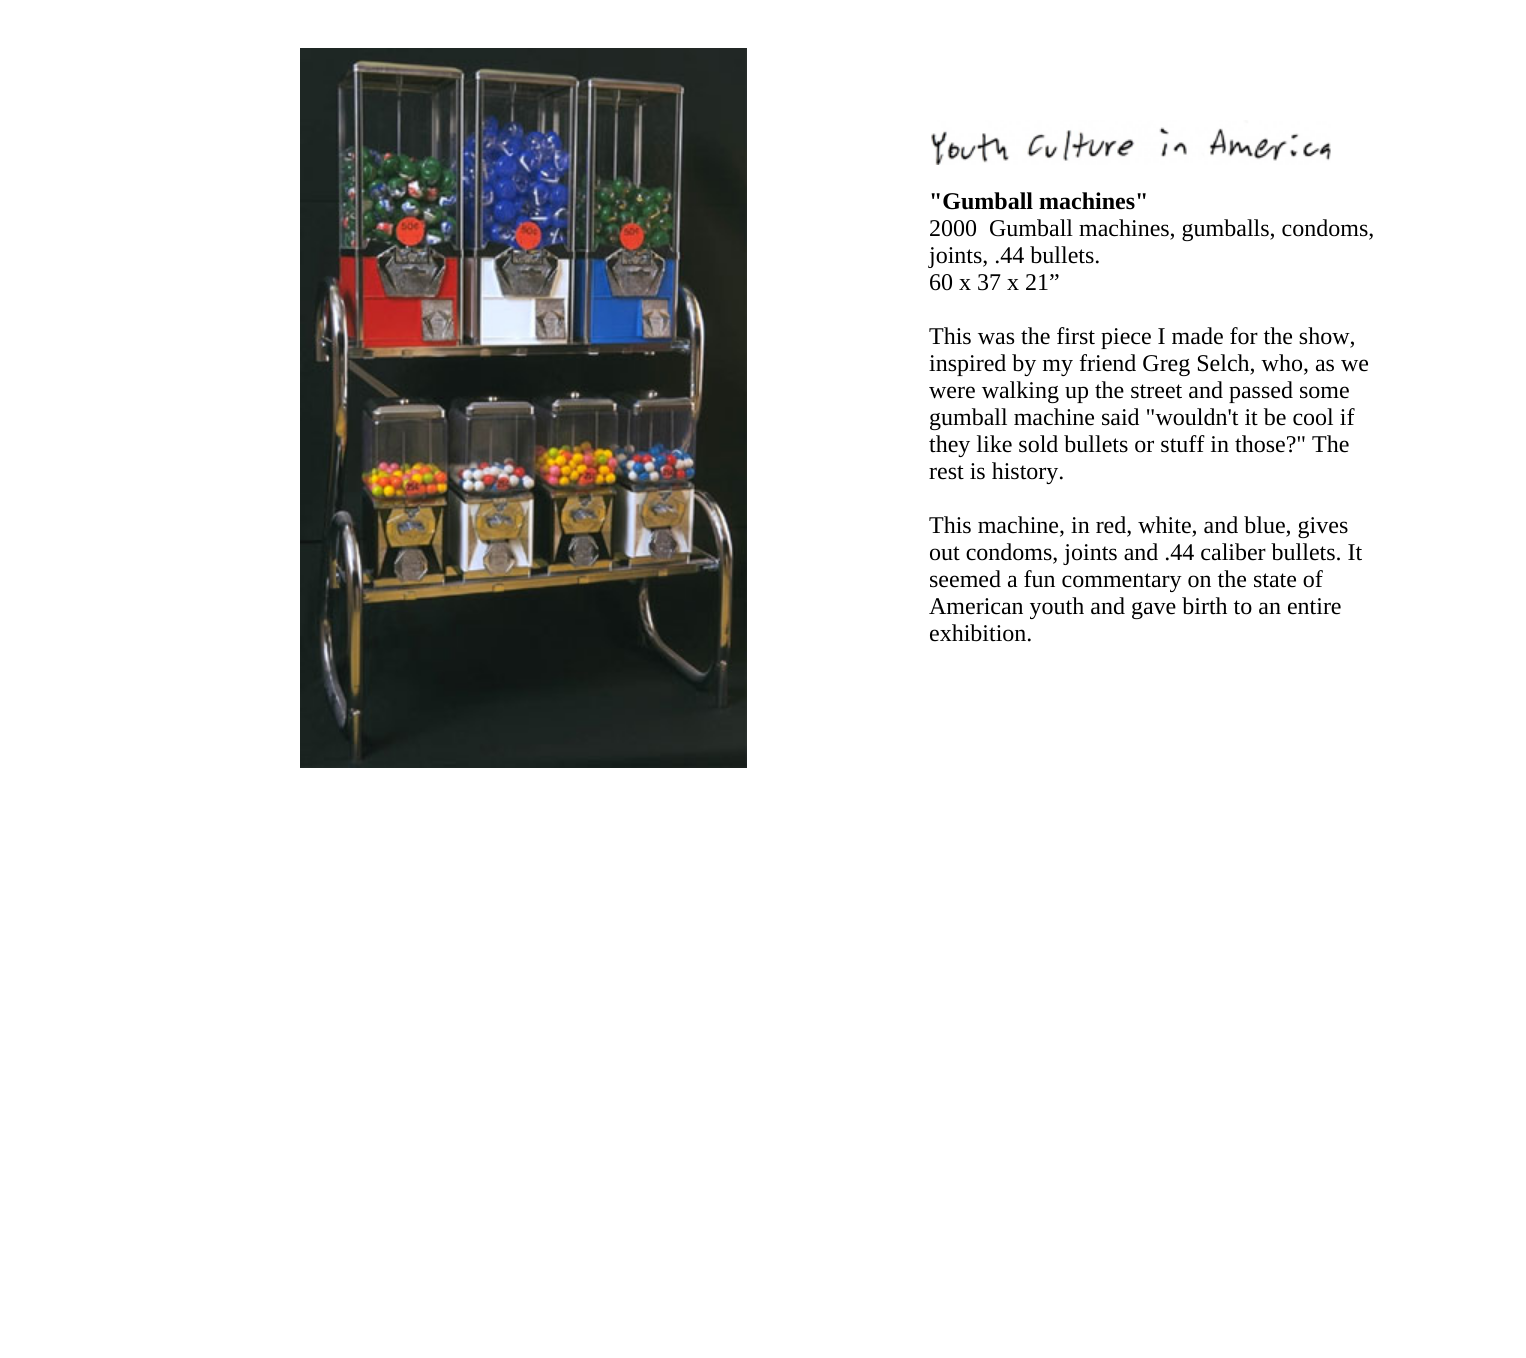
#include <cairo.h>
#include <math.h>
#include <stddef.h>


static void picture(cairo_t *cr, const char *path, double x, double y, double w, double h) {
    cairo_surface_t *image = cairo_image_surface_create_from_png(path);
    cairo_save(cr);
    cairo_set_source_surface(cr, image, x, y);
    cairo_rectangle(cr, x, y, w, h);
    cairo_fill(cr);
    cairo_restore(cr);
    cairo_surface_destroy(image);
}

int main(void) {
    cairo_surface_t *surface = cairo_image_surface_create(CAIRO_FORMAT_RGB24, 1526, 1358);
    cairo_t *cr = cairo_create(surface);
    cairo_font_options_t *options = cairo_font_options_create();
    cairo_font_options_set_hint_metrics(options, CAIRO_HINT_METRICS_OFF);
    cairo_font_options_set_hint_style(options, CAIRO_HINT_STYLE_NONE);
    cairo_set_font_options(cr, options);
    cairo_set_miter_limit(cr, 4);
    cairo_set_source_rgb(cr, 1, 1, 1);
    cairo_paint(cr);
    picture(cr, "img1.png", 300, 48, 447, 720);
    picture(cr, "img2.png", 931, 120, 400, 45);
    cairo_select_font_face(cr, "Liberation Serif", CAIRO_FONT_SLANT_NORMAL, CAIRO_FONT_WEIGHT_BOLD);
    cairo_set_font_size(cr, 24);
    cairo_set_source_rgb(cr, 0, 0, 0);
    cairo_move_to(cr, 929, 209);
    cairo_show_text(cr, "\"Gumball machines\"");
    cairo_select_font_face(cr, "Liberation Serif", CAIRO_FONT_SLANT_NORMAL, CAIRO_FONT_WEIGHT_NORMAL);
    cairo_move_to(cr, 929, 236);
    cairo_show_text(cr, "2000  Gumball machines, gumballs, condoms,");
    cairo_move_to(cr, 929, 263);
    cairo_show_text(cr, "joints, .44 bullets.");
    cairo_move_to(cr, 929, 290);
    cairo_show_text(cr, "60 x 37 x 21”");
    cairo_move_to(cr, 929, 344);
    cairo_show_text(cr, "This was the first piece I made for the show,");
    cairo_move_to(cr, 929, 371);
    cairo_show_text(cr, "inspired by my friend Greg Selch, who, as we");
    cairo_move_to(cr, 929, 398);
    cairo_show_text(cr, "were walking up the street and passed some");
    cairo_move_to(cr, 929, 425);
    cairo_show_text(cr, "gumball machine said \"wouldn't it be cool if");
    cairo_move_to(cr, 929, 452);
    cairo_show_text(cr, "they like sold bullets or stuff in those?\" The");
    cairo_move_to(cr, 929, 479);
    cairo_show_text(cr, "rest is history.");
    cairo_move_to(cr, 929, 533);
    cairo_show_text(cr, "This machine, in red, white, and blue, gives");
    cairo_move_to(cr, 929, 560);
    cairo_show_text(cr, "out condoms, joints and .44 caliber bullets. It");
    cairo_move_to(cr, 929, 587);
    cairo_show_text(cr, "seemed a fun commentary on the state of");
    cairo_move_to(cr, 929, 614);
    cairo_show_text(cr, "American youth and gave birth to an entire");
    cairo_move_to(cr, 929, 641);
    cairo_show_text(cr, "exhibition.");
    cairo_surface_write_to_png(surface, "page.png");
    cairo_font_options_destroy(options);
    cairo_destroy(cr);
    cairo_surface_destroy(surface);
    return 0;
}
